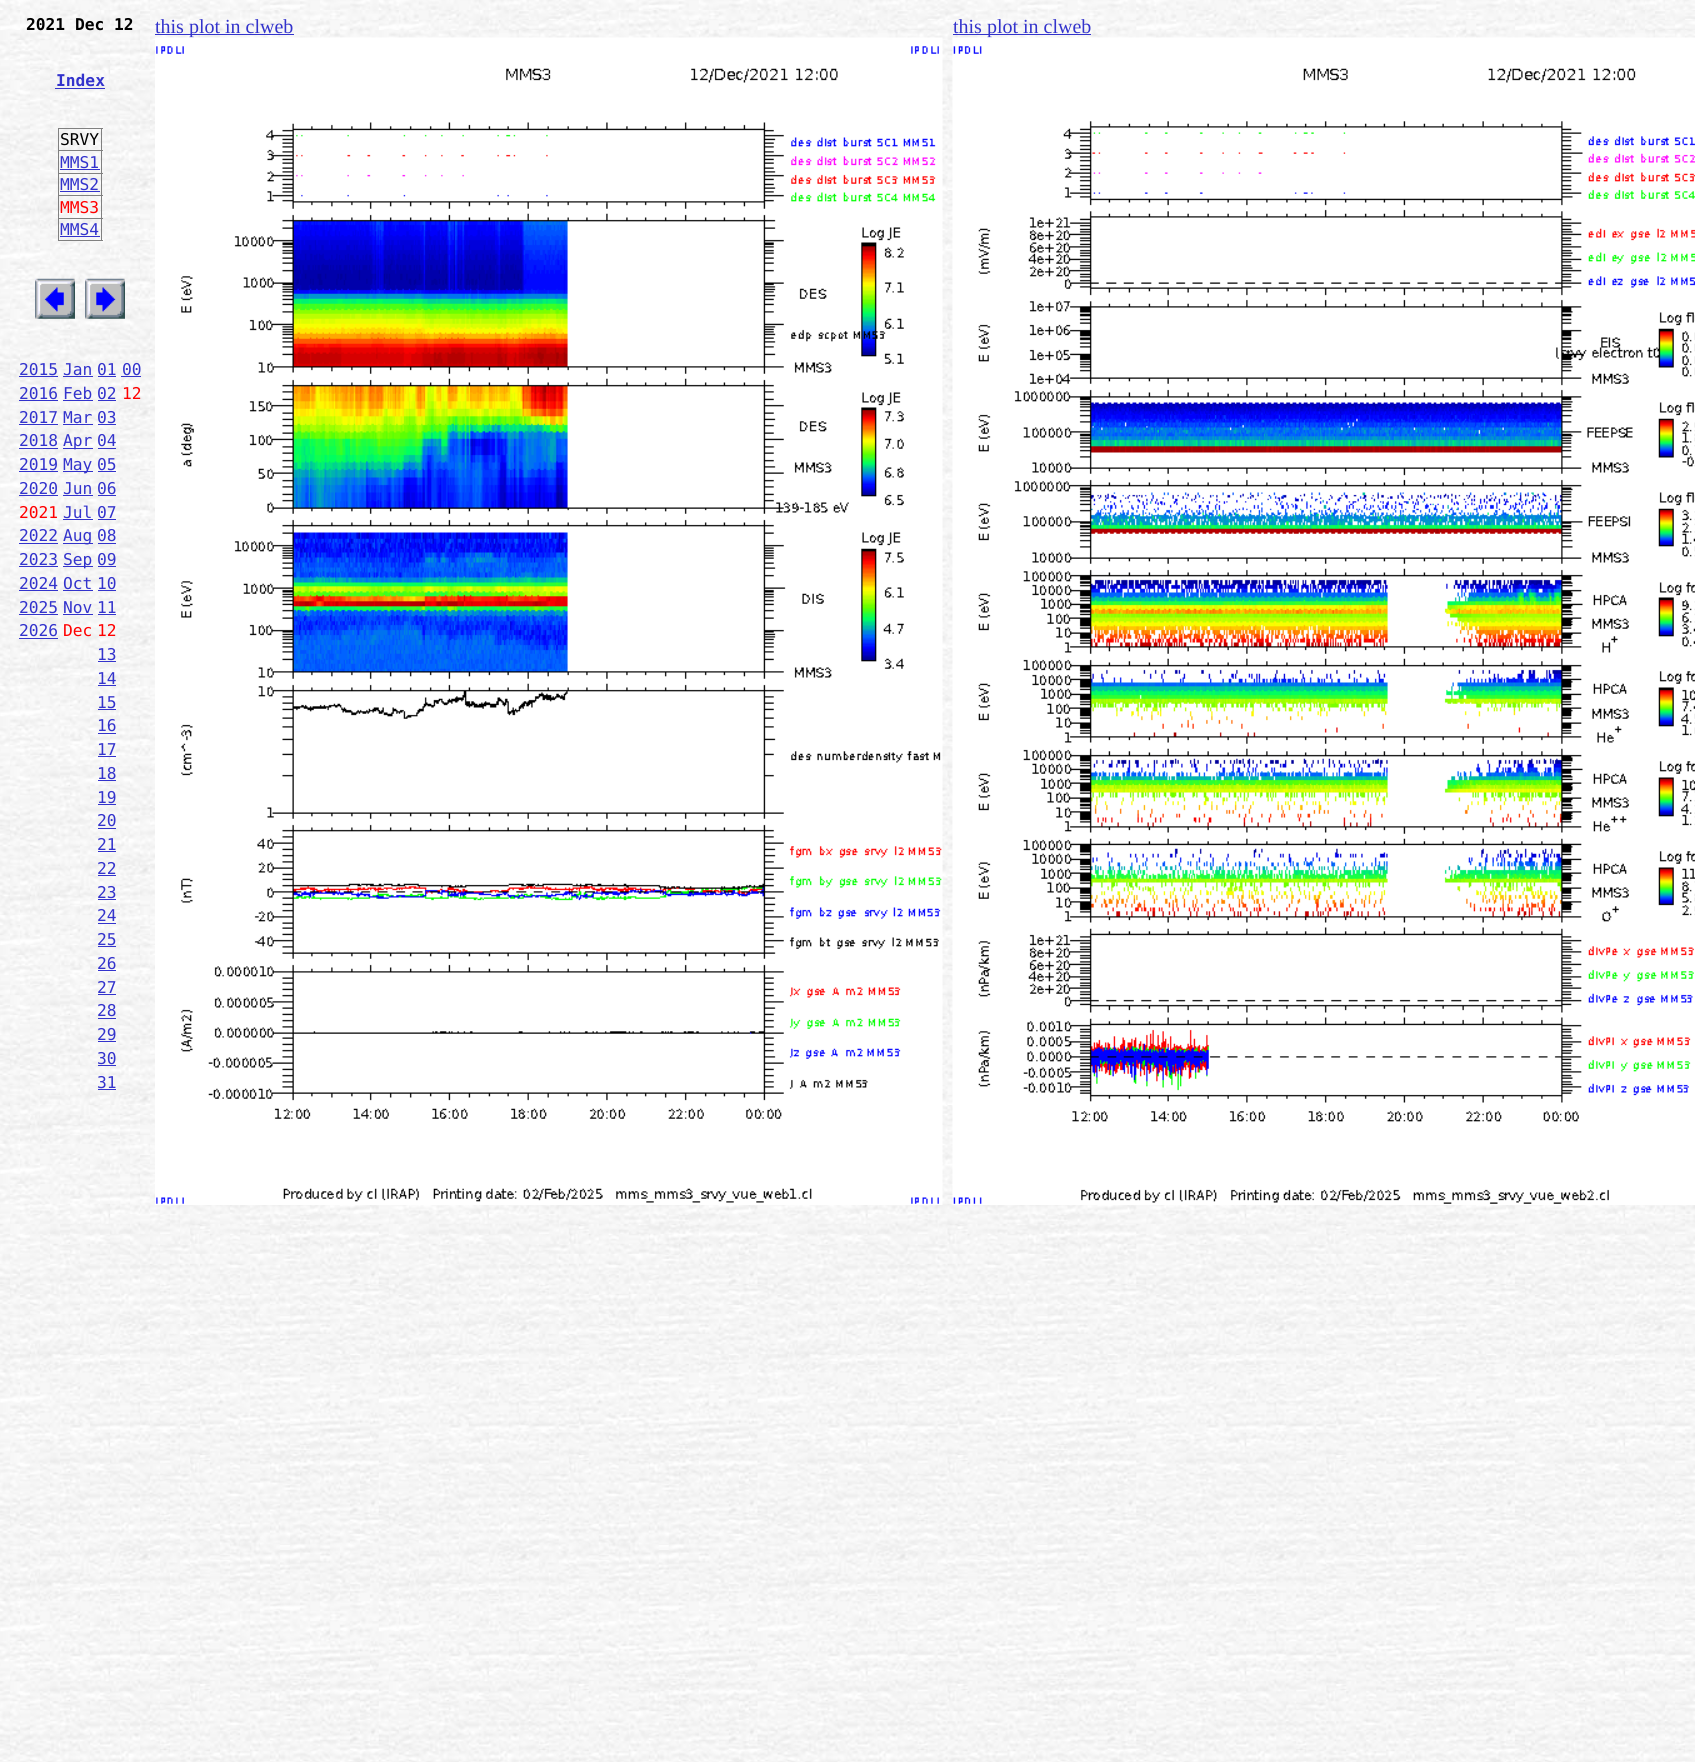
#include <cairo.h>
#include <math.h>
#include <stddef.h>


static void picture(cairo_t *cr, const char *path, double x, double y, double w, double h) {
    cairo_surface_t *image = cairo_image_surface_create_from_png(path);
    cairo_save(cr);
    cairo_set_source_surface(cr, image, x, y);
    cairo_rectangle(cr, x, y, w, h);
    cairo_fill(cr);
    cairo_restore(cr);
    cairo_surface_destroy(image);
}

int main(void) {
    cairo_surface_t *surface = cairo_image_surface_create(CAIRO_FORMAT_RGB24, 1695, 1762);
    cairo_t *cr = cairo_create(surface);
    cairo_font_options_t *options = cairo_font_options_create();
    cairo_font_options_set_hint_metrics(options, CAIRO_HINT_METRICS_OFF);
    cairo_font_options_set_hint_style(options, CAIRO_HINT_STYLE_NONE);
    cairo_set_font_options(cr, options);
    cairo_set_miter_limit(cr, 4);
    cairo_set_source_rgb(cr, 1, 1, 1);
    cairo_paint(cr);
    picture(cr, "img1.png", 0, 0, 1695, 1762);
    cairo_select_font_face(cr, "DejaVu Sans Mono", CAIRO_FONT_SLANT_NORMAL, CAIRO_FONT_WEIGHT_BOLD);
    cairo_set_font_size(cr, 16.25);
    cairo_set_source_rgb(cr, 0, 0, 0);
    cairo_move_to(cr, 26, 30);
    cairo_show_text(cr, "2021 Dec 12");
    cairo_set_source_rgb(cr, 0.2, 0.2, 0.8);
    cairo_move_to(cr, 56, 86);
    cairo_show_text(cr, "Index");
    cairo_rectangle(cr, 55, 88, 50, 1);
    cairo_fill(cr);
    cairo_set_source_rgb(cr, 0.502, 0.502, 0.502);
    cairo_rectangle(cr, 58, 128, 45, 1);
    cairo_fill(cr);
    cairo_rectangle(cr, 101, 128, 1, 113);
    cairo_fill(cr);
    cairo_rectangle(cr, 58, 240, 45, 1);
    cairo_fill(cr);
    cairo_rectangle(cr, 58, 128, 1, 113);
    cairo_fill(cr);
    cairo_select_font_face(cr, "DejaVu Sans Mono", CAIRO_FONT_SLANT_NORMAL, CAIRO_FONT_WEIGHT_NORMAL);
    cairo_set_source_rgb(cr, 0, 0, 0);
    cairo_move_to(cr, 60, 145);
    cairo_show_text(cr, "SRVY");
    cairo_set_source_rgb(cr, 0.502, 0.502, 0.502);
    cairo_rectangle(cr, 58, 150, 45, 1);
    cairo_fill(cr);
    cairo_set_source_rgb(cr, 0.2, 0.2, 0.8);
    cairo_move_to(cr, 60, 168);
    cairo_show_text(cr, "MMS1");
    cairo_rectangle(cr, 60, 169, 40, 1);
    cairo_fill(cr);
    cairo_set_source_rgb(cr, 0.502, 0.502, 0.502);
    cairo_rectangle(cr, 58, 173, 45, 1);
    cairo_fill(cr);
    cairo_set_source_rgb(cr, 0.2, 0.2, 0.8);
    cairo_move_to(cr, 60, 190);
    cairo_show_text(cr, "MMS2");
    cairo_rectangle(cr, 60, 191, 40, 1);
    cairo_fill(cr);
    cairo_set_source_rgb(cr, 0.502, 0.502, 0.502);
    cairo_rectangle(cr, 58, 195, 45, 1);
    cairo_fill(cr);
    cairo_set_source_rgb(cr, 1, 0, 0);
    cairo_move_to(cr, 60, 213);
    cairo_show_text(cr, "MMS3");
    cairo_set_source_rgb(cr, 0.502, 0.502, 0.502);
    cairo_rectangle(cr, 58, 218, 45, 1);
    cairo_fill(cr);
    cairo_set_source_rgb(cr, 0.2, 0.2, 0.8);
    cairo_move_to(cr, 60, 235);
    cairo_show_text(cr, "MMS4");
    cairo_rectangle(cr, 60, 236, 40, 1);
    cairo_fill(cr);
    picture(cr, "img2.png", 35, 278, 40, 41);
    picture(cr, "img3.png", 85, 278, 40, 41);
    cairo_move_to(cr, 19, 375);
    cairo_show_text(cr, "2015");
    cairo_rectangle(cr, 19, 376, 39, 1);
    cairo_fill(cr);
    cairo_move_to(cr, 63, 375);
    cairo_show_text(cr, "Jan");
    cairo_rectangle(cr, 63, 376, 30, 1);
    cairo_fill(cr);
    cairo_move_to(cr, 97, 375);
    cairo_show_text(cr, "01");
    cairo_rectangle(cr, 98, 376, 18, 1);
    cairo_fill(cr);
    cairo_move_to(cr, 122, 375);
    cairo_show_text(cr, "00");
    cairo_rectangle(cr, 121, 376, 20, 1);
    cairo_fill(cr);
    cairo_move_to(cr, 19, 399);
    cairo_show_text(cr, "2016");
    cairo_rectangle(cr, 19, 400, 39, 1);
    cairo_fill(cr);
    cairo_move_to(cr, 63, 399);
    cairo_show_text(cr, "Feb");
    cairo_rectangle(cr, 63, 400, 30, 1);
    cairo_fill(cr);
    cairo_move_to(cr, 97, 399);
    cairo_show_text(cr, "02");
    cairo_rectangle(cr, 98, 400, 18, 1);
    cairo_fill(cr);
    cairo_set_source_rgb(cr, 1, 0, 0);
    cairo_move_to(cr, 122, 399);
    cairo_show_text(cr, "12");
    cairo_set_source_rgb(cr, 0.2, 0.2, 0.8);
    cairo_move_to(cr, 19, 423);
    cairo_show_text(cr, "2017");
    cairo_rectangle(cr, 19, 424, 39, 1);
    cairo_fill(cr);
    cairo_move_to(cr, 63, 423);
    cairo_show_text(cr, "Mar");
    cairo_rectangle(cr, 63, 424, 30, 1);
    cairo_fill(cr);
    cairo_move_to(cr, 97, 423);
    cairo_show_text(cr, "03");
    cairo_rectangle(cr, 98, 424, 18, 1);
    cairo_fill(cr);
    cairo_move_to(cr, 19, 446);
    cairo_show_text(cr, "2018");
    cairo_rectangle(cr, 19, 448, 39, 1);
    cairo_fill(cr);
    cairo_rectangle(cr, 63, 448, 30, 1);
    cairo_fill(cr);
    cairo_move_to(cr, 63, 446);
    cairo_show_text(cr, "Apr");
    cairo_move_to(cr, 97, 446);
    cairo_show_text(cr, "04");
    cairo_rectangle(cr, 98, 448, 18, 1);
    cairo_fill(cr);
    cairo_move_to(cr, 19, 470);
    cairo_show_text(cr, "2019");
    cairo_rectangle(cr, 19, 471, 39, 1);
    cairo_fill(cr);
    cairo_rectangle(cr, 63, 471, 30, 1);
    cairo_fill(cr);
    cairo_move_to(cr, 63, 470);
    cairo_show_text(cr, "May");
    cairo_move_to(cr, 97, 470);
    cairo_show_text(cr, "05");
    cairo_rectangle(cr, 98, 471, 18, 1);
    cairo_fill(cr);
    cairo_move_to(cr, 19, 494);
    cairo_show_text(cr, "2020");
    cairo_rectangle(cr, 19, 495, 39, 1);
    cairo_fill(cr);
    cairo_move_to(cr, 63, 494);
    cairo_show_text(cr, "Jun");
    cairo_rectangle(cr, 63, 495, 30, 1);
    cairo_fill(cr);
    cairo_move_to(cr, 97, 494);
    cairo_show_text(cr, "06");
    cairo_rectangle(cr, 98, 495, 18, 1);
    cairo_fill(cr);
    cairo_set_source_rgb(cr, 1, 0, 0);
    cairo_move_to(cr, 19, 518);
    cairo_show_text(cr, "2021");
    cairo_set_source_rgb(cr, 0.2, 0.2, 0.8);
    cairo_move_to(cr, 63, 518);
    cairo_show_text(cr, "Jul");
    cairo_rectangle(cr, 63, 519, 30, 1);
    cairo_fill(cr);
    cairo_move_to(cr, 97, 518);
    cairo_show_text(cr, "07");
    cairo_rectangle(cr, 98, 519, 18, 1);
    cairo_fill(cr);
    cairo_move_to(cr, 19, 541);
    cairo_show_text(cr, "2022");
    cairo_rectangle(cr, 19, 543, 39, 1);
    cairo_fill(cr);
    cairo_rectangle(cr, 63, 543, 30, 1);
    cairo_fill(cr);
    cairo_move_to(cr, 63, 541);
    cairo_show_text(cr, "Aug");
    cairo_move_to(cr, 97, 541);
    cairo_show_text(cr, "08");
    cairo_rectangle(cr, 98, 543, 18, 1);
    cairo_fill(cr);
    cairo_move_to(cr, 19, 565);
    cairo_show_text(cr, "2023");
    cairo_rectangle(cr, 19, 566, 39, 1);
    cairo_fill(cr);
    cairo_rectangle(cr, 63, 566, 30, 1);
    cairo_fill(cr);
    cairo_move_to(cr, 63, 565);
    cairo_show_text(cr, "Sep");
    cairo_move_to(cr, 97, 565);
    cairo_show_text(cr, "09");
    cairo_rectangle(cr, 98, 566, 18, 1);
    cairo_fill(cr);
    cairo_move_to(cr, 19, 589);
    cairo_show_text(cr, "2024");
    cairo_rectangle(cr, 19, 590, 39, 1);
    cairo_fill(cr);
    cairo_move_to(cr, 63, 589);
    cairo_show_text(cr, "Oct");
    cairo_rectangle(cr, 63, 590, 30, 1);
    cairo_fill(cr);
    cairo_move_to(cr, 97, 589);
    cairo_show_text(cr, "10");
    cairo_rectangle(cr, 98, 590, 18, 1);
    cairo_fill(cr);
    cairo_move_to(cr, 19, 613);
    cairo_show_text(cr, "2025");
    cairo_rectangle(cr, 19, 614, 39, 1);
    cairo_fill(cr);
    cairo_move_to(cr, 63, 613);
    cairo_show_text(cr, "Nov");
    cairo_rectangle(cr, 63, 614, 30, 1);
    cairo_fill(cr);
    cairo_move_to(cr, 97, 613);
    cairo_show_text(cr, "11");
    cairo_rectangle(cr, 98, 614, 18, 1);
    cairo_fill(cr);
    cairo_move_to(cr, 19, 636);
    cairo_show_text(cr, "2026");
    cairo_rectangle(cr, 19, 638, 39, 1);
    cairo_fill(cr);
    cairo_set_source_rgb(cr, 1, 0, 0);
    cairo_move_to(cr, 63, 636);
    cairo_show_text(cr, "Dec");
    cairo_move_to(cr, 97, 636);
    cairo_show_text(cr, "12");
    cairo_set_source_rgb(cr, 0.2, 0.2, 0.8);
    cairo_move_to(cr, 97, 660);
    cairo_show_text(cr, "13");
    cairo_rectangle(cr, 98, 661, 18, 1);
    cairo_fill(cr);
    cairo_move_to(cr, 97, 684);
    cairo_show_text(cr, "14");
    cairo_rectangle(cr, 98, 685, 18, 1);
    cairo_fill(cr);
    cairo_move_to(cr, 97, 708);
    cairo_show_text(cr, "15");
    cairo_rectangle(cr, 98, 709, 18, 1);
    cairo_fill(cr);
    cairo_move_to(cr, 97, 731);
    cairo_show_text(cr, "16");
    cairo_rectangle(cr, 98, 733, 18, 1);
    cairo_fill(cr);
    cairo_move_to(cr, 97, 755);
    cairo_show_text(cr, "17");
    cairo_rectangle(cr, 98, 756, 18, 1);
    cairo_fill(cr);
    cairo_move_to(cr, 97, 779);
    cairo_show_text(cr, "18");
    cairo_rectangle(cr, 98, 780, 18, 1);
    cairo_fill(cr);
    cairo_move_to(cr, 97, 803);
    cairo_show_text(cr, "19");
    cairo_rectangle(cr, 98, 804, 18, 1);
    cairo_fill(cr);
    cairo_move_to(cr, 97, 826);
    cairo_show_text(cr, "20");
    cairo_rectangle(cr, 98, 828, 18, 1);
    cairo_fill(cr);
    cairo_move_to(cr, 97, 850);
    cairo_show_text(cr, "21");
    cairo_rectangle(cr, 98, 851, 18, 1);
    cairo_fill(cr);
    cairo_move_to(cr, 97, 874);
    cairo_show_text(cr, "22");
    cairo_rectangle(cr, 98, 875, 18, 1);
    cairo_fill(cr);
    cairo_move_to(cr, 97, 898);
    cairo_show_text(cr, "23");
    cairo_rectangle(cr, 98, 899, 18, 1);
    cairo_fill(cr);
    cairo_move_to(cr, 97, 921);
    cairo_show_text(cr, "24");
    cairo_rectangle(cr, 98, 923, 18, 1);
    cairo_fill(cr);
    cairo_move_to(cr, 97, 945);
    cairo_show_text(cr, "25");
    cairo_rectangle(cr, 98, 946, 18, 1);
    cairo_fill(cr);
    cairo_move_to(cr, 97, 969);
    cairo_show_text(cr, "26");
    cairo_rectangle(cr, 98, 970, 18, 1);
    cairo_fill(cr);
    cairo_move_to(cr, 97, 993);
    cairo_show_text(cr, "27");
    cairo_rectangle(cr, 98, 994, 18, 1);
    cairo_fill(cr);
    cairo_move_to(cr, 97, 1016);
    cairo_show_text(cr, "28");
    cairo_rectangle(cr, 98, 1018, 18, 1);
    cairo_fill(cr);
    cairo_move_to(cr, 97, 1040);
    cairo_show_text(cr, "29");
    cairo_rectangle(cr, 98, 1041, 18, 1);
    cairo_fill(cr);
    cairo_move_to(cr, 97, 1064);
    cairo_show_text(cr, "30");
    cairo_rectangle(cr, 98, 1065, 18, 1);
    cairo_fill(cr);
    cairo_move_to(cr, 97, 1088);
    cairo_show_text(cr, "31");
    cairo_rectangle(cr, 98, 1089, 18, 1);
    cairo_fill(cr);
    cairo_rectangle(cr, 155, 34, 139, 1);
    cairo_fill(cr);
    cairo_select_font_face(cr, "Liberation Serif", CAIRO_FONT_SLANT_NORMAL, CAIRO_FONT_WEIGHT_NORMAL);
    cairo_set_font_size(cr, 20);
    cairo_move_to(cr, 155, 33);
    cairo_show_text(cr, "this plot in clweb");
    picture(cr, "img4.png", 155, 37, 788, 1168);
    cairo_rectangle(cr, 953, 34, 138, 1);
    cairo_fill(cr);
    cairo_move_to(cr, 953, 33);
    cairo_show_text(cr, "this plot in clweb");
    picture(cr, "img5.png", 952, 37, 743, 1168);
    cairo_surface_write_to_png(surface, "page.png");
    cairo_font_options_destroy(options);
    cairo_destroy(cr);
    cairo_surface_destroy(surface);
    return 0;
}
